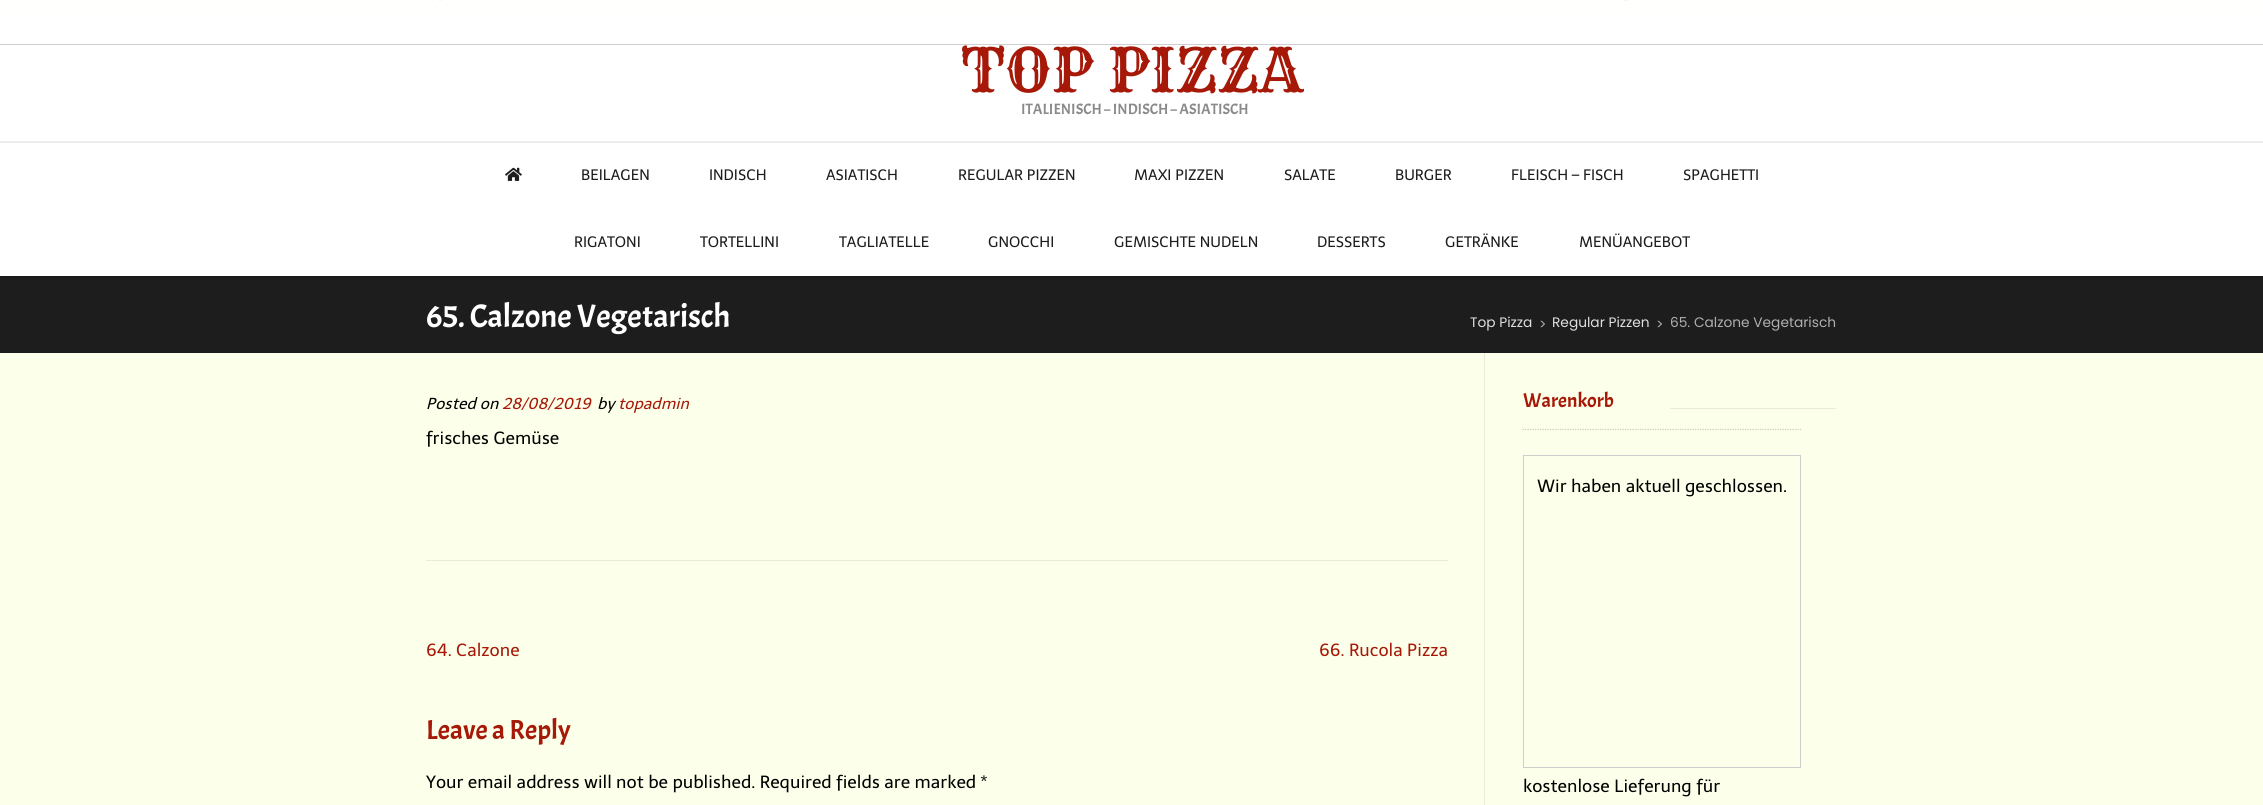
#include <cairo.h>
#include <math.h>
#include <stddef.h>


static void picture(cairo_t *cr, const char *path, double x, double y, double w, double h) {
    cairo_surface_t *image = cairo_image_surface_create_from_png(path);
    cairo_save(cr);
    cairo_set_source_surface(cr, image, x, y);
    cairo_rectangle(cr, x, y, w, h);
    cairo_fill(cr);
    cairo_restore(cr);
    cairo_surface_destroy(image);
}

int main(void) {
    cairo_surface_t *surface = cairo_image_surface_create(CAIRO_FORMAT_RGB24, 2263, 805);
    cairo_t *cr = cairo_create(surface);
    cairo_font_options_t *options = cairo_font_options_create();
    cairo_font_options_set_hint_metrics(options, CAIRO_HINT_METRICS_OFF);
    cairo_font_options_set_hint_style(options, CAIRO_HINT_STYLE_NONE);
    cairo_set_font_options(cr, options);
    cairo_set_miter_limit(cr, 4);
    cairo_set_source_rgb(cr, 0.988, 1, 0.914);
    cairo_paint(cr);
    cairo_set_source_rgb(cr, 0.808, 0.808, 0.808);
    cairo_rectangle(cr, 0, 44, 2263, 1);
    cairo_fill(cr);
    cairo_set_source_rgb(cr, 0.102, 0.102, 0.102);
    cairo_new_path(cr);
    cairo_move_to(cr, 0, 276);
    cairo_line_to(cr, 0, 278);
    cairo_line_to(cr, 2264, 278);
    cairo_line_to(cr, 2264, -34);
    cairo_line_to(cr, 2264, 276);
    cairo_close_path(cr);
    cairo_fill(cr);
    cairo_set_source_rgb(cr, 1, 1, 1);
    cairo_rectangle(cr, 0, 45, 2263, 231);
    cairo_fill(cr);
    cairo_rectangle(cr, 0, 16, 2263, 28);
    cairo_fill(cr);
    cairo_set_source_rgb(cr, 1, 1, 0.992);
    cairo_rectangle(cr, 0, 0, 2263, 15);
    cairo_fill(cr);
    cairo_set_source_rgb(cr, 0.992, 0.992, 0.984);
    cairo_rectangle(cr, 0, 15, 2263, 1);
    cairo_fill(cr);
    picture(cr, "img1.png", 430, 0, 12, 1);
    picture(cr, "img2.png", 1368, 0, 3, 1);
    picture(cr, "img3.png", 1624, 0, 5, 1);
    cairo_set_source_rgb(cr, 0.922, 0.922, 0.922);
    cairo_new_path(cr);
    cairo_move_to(cr, 0, 141);
    cairo_line_to(cr, 0, 143);
    cairo_line_to(cr, 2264, 143);
    cairo_line_to(cr, 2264, 18);
    cairo_line_to(cr, 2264, 141);
    cairo_close_path(cr);
    cairo_fill(cr);
    cairo_select_font_face(cr, "Rye", CAIRO_FONT_SLANT_NORMAL, CAIRO_FONT_WEIGHT_NORMAL);
    cairo_set_font_size(cr, 60);
    cairo_set_source_rgb(cr, 0.651, 0.098, 0.035);
    cairo_move_to(cr, 961, 92);
    cairo_show_text(cr, "TOP PIZZA");
    cairo_select_font_face(cr, "Acme", CAIRO_FONT_SLANT_NORMAL, CAIRO_FONT_WEIGHT_NORMAL);
    cairo_set_font_size(cr, 15);
    cairo_set_source_rgb(cr, 0.541, 0.541, 0.541);
    cairo_move_to(cr, 1021, 114);
    cairo_show_text(cr, "ITALIENISCH – INDISCH – ASIATISCH");
    picture(cr, "img4.png", 505, 167, 17, 14);
    cairo_select_font_face(cr, "Telex", CAIRO_FONT_SLANT_NORMAL, CAIRO_FONT_WEIGHT_NORMAL);
    cairo_set_source_rgb(cr, 0.114, 0.114, 0.114);
    cairo_move_to(cr, 581, 180);
    cairo_show_text(cr, "BEILAGEN");
    cairo_move_to(cr, 709, 180);
    cairo_show_text(cr, "INDISCH");
    cairo_move_to(cr, 826, 180);
    cairo_show_text(cr, "ASIATISCH");
    cairo_move_to(cr, 958, 180);
    cairo_show_text(cr, "REGULAR PIZZEN");
    cairo_move_to(cr, 1134, 180);
    cairo_show_text(cr, "MAXI PIZZEN");
    cairo_move_to(cr, 1284, 180);
    cairo_show_text(cr, "SALATE");
    cairo_move_to(cr, 1395, 180);
    cairo_show_text(cr, "BURGER");
    cairo_move_to(cr, 1511, 180);
    cairo_show_text(cr, "FLEISCH – FISCH");
    cairo_move_to(cr, 1683, 180);
    cairo_show_text(cr, "SPAGHETTI");
    cairo_move_to(cr, 574, 247);
    cairo_show_text(cr, "RIGATONI");
    cairo_move_to(cr, 700, 247);
    cairo_show_text(cr, "TORTELLINI");
    cairo_move_to(cr, 839, 247);
    cairo_show_text(cr, "TAGLIATELLE");
    cairo_move_to(cr, 988, 247);
    cairo_show_text(cr, "GNOCCHI");
    cairo_move_to(cr, 1114, 247);
    cairo_show_text(cr, "GEMISCHTE NUDELN");
    cairo_move_to(cr, 1317, 247);
    cairo_show_text(cr, "DESSERTS");
    cairo_move_to(cr, 1445, 247);
    cairo_show_text(cr, "GETRÄNKE");
    cairo_move_to(cr, 1579, 247);
    cairo_show_text(cr, "MENÜANGEBOT");
    cairo_rectangle(cr, 0, 278, 2263, 75);
    cairo_fill(cr);
    cairo_select_font_face(cr, "Acme", CAIRO_FONT_SLANT_NORMAL, CAIRO_FONT_WEIGHT_NORMAL);
    cairo_set_font_size(cr, 32.5);
    cairo_set_source_rgb(cr, 1, 1, 1);
    cairo_move_to(cr, 426, 327);
    cairo_show_text(cr, "65. Calzone Vegetarisch");
    cairo_select_font_face(cr, "Poppins", CAIRO_FONT_SLANT_NORMAL, CAIRO_FONT_WEIGHT_NORMAL);
    cairo_set_font_size(cr, 13.75);
    cairo_set_source_rgb(cr, 0.875, 0.875, 0.875);
    cairo_move_to(cr, 1470, 327);
    cairo_show_text(cr, "Top Pizza");
    cairo_set_source_rgb(cr, 0.686, 0.686, 0.686);
    cairo_move_to(cr, 1539, 329);
    cairo_show_text(cr, ">");
    cairo_set_source_rgb(cr, 0.875, 0.875, 0.875);
    cairo_move_to(cr, 1552, 327);
    cairo_show_text(cr, "Regular Pizzen");
    cairo_set_source_rgb(cr, 0.686, 0.686, 0.686);
    cairo_move_to(cr, 1656, 329);
    cairo_show_text(cr, ">");
    cairo_move_to(cr, 1670, 327);
    cairo_show_text(cr, "65. Calzone Vegetarisch");
    cairo_set_source_rgb(cr, 0.91, 0.922, 0.839);
    cairo_rectangle(cr, 1670, 408, 166, 1);
    cairo_fill(cr);
    cairo_rectangle(cr, 426, 560, 1022, 1);
    cairo_fill(cr);
    cairo_select_font_face(cr, "Telex", CAIRO_FONT_SLANT_ITALIC, CAIRO_FONT_WEIGHT_NORMAL);
    cairo_set_font_size(cr, 15.75);
    cairo_set_source_rgb(cr, 0, 0, 0);
    cairo_move_to(cr, 426, 409);
    cairo_show_text(cr, "Posted on");
    cairo_set_source_rgb(cr, 0.651, 0.098, 0.035);
    cairo_move_to(cr, 502, 409);
    cairo_show_text(cr, "28/08/2019");
    cairo_set_source_rgb(cr, 0, 0, 0);
    cairo_move_to(cr, 597, 409);
    cairo_show_text(cr, "by");
    cairo_set_source_rgb(cr, 0.651, 0.098, 0.035);
    cairo_move_to(cr, 618, 409);
    cairo_show_text(cr, "topadmin");
    cairo_select_font_face(cr, "Telex", CAIRO_FONT_SLANT_NORMAL, CAIRO_FONT_WEIGHT_NORMAL);
    cairo_set_font_size(cr, 17.5);
    cairo_set_source_rgb(cr, 0, 0, 0);
    cairo_move_to(cr, 426, 444);
    cairo_show_text(cr, "frisches Gemüse");
    cairo_set_source_rgb(cr, 0.651, 0.098, 0.035);
    cairo_move_to(cr, 426, 656);
    cairo_show_text(cr, "64. Calzone");
    cairo_move_to(cr, 1319, 656);
    cairo_show_text(cr, "66. Rucola Pizza");
    cairo_select_font_face(cr, "Acme", CAIRO_FONT_SLANT_NORMAL, CAIRO_FONT_WEIGHT_NORMAL);
    cairo_set_font_size(cr, 27.5);
    cairo_move_to(cr, 426, 739);
    cairo_show_text(cr, "Leave a Reply");
    cairo_select_font_face(cr, "Telex", CAIRO_FONT_SLANT_NORMAL, CAIRO_FONT_WEIGHT_NORMAL);
    cairo_set_font_size(cr, 17.5);
    cairo_set_source_rgb(cr, 0, 0, 0);
    cairo_move_to(cr, 426, 788);
    cairo_show_text(cr, "Your email address will not be published. Required fields are marked *");
    cairo_set_source_rgb(cr, 0.91, 0.922, 0.843);
    cairo_new_path(cr);
    cairo_move_to(cr, 1484, 353);
    cairo_line_to(cr, 1484, 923);
    cairo_line_to(cr, 1838, 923);
    cairo_line_to(cr, 1838, 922);
    cairo_line_to(cr, 1485, 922);
    cairo_line_to(cr, 1485, 353);
    cairo_close_path(cr);
    cairo_fill(cr);
    cairo_new_path(cr);
    cairo_move_to(cr, 1522.5, 429.5);
    cairo_line_to(cr, 1801, 429.5);
    cairo_set_source_rgb(cr, 0.792, 0.8, 0.729);
    cairo_set_line_width(cr, 1.2);
    cairo_set_dash(cr, (double[]){1.25, 1.25}, 2, 0);
    cairo_stroke(cr);
    cairo_select_font_face(cr, "Acme", CAIRO_FONT_SLANT_NORMAL, CAIRO_FONT_WEIGHT_NORMAL);
    cairo_set_font_size(cr, 20);
    cairo_set_source_rgb(cr, 0.651, 0.098, 0.035);
    cairo_move_to(cr, 1523, 407);
    cairo_show_text(cr, "Warenkorb");
    cairo_rectangle(cr, 1523.5, 455.5, 277, 312);
    cairo_set_source_rgb(cr, 0.808, 0.808, 0.808);
    cairo_set_line_width(cr, 1);
    cairo_set_dash(cr, NULL, 0, 0);
    cairo_stroke(cr);
    cairo_select_font_face(cr, "Telex", CAIRO_FONT_SLANT_NORMAL, CAIRO_FONT_WEIGHT_NORMAL);
    cairo_set_font_size(cr, 17.5);
    cairo_set_source_rgb(cr, 0, 0, 0);
    cairo_move_to(cr, 1537, 492);
    cairo_show_text(cr, "Wir haben aktuell geschlossen.");
    cairo_move_to(cr, 1523, 792);
    cairo_show_text(cr, "kostenlose Lieferung für");
    cairo_surface_write_to_png(surface, "page.png");
    cairo_font_options_destroy(options);
    cairo_destroy(cr);
    cairo_surface_destroy(surface);
    return 0;
}
